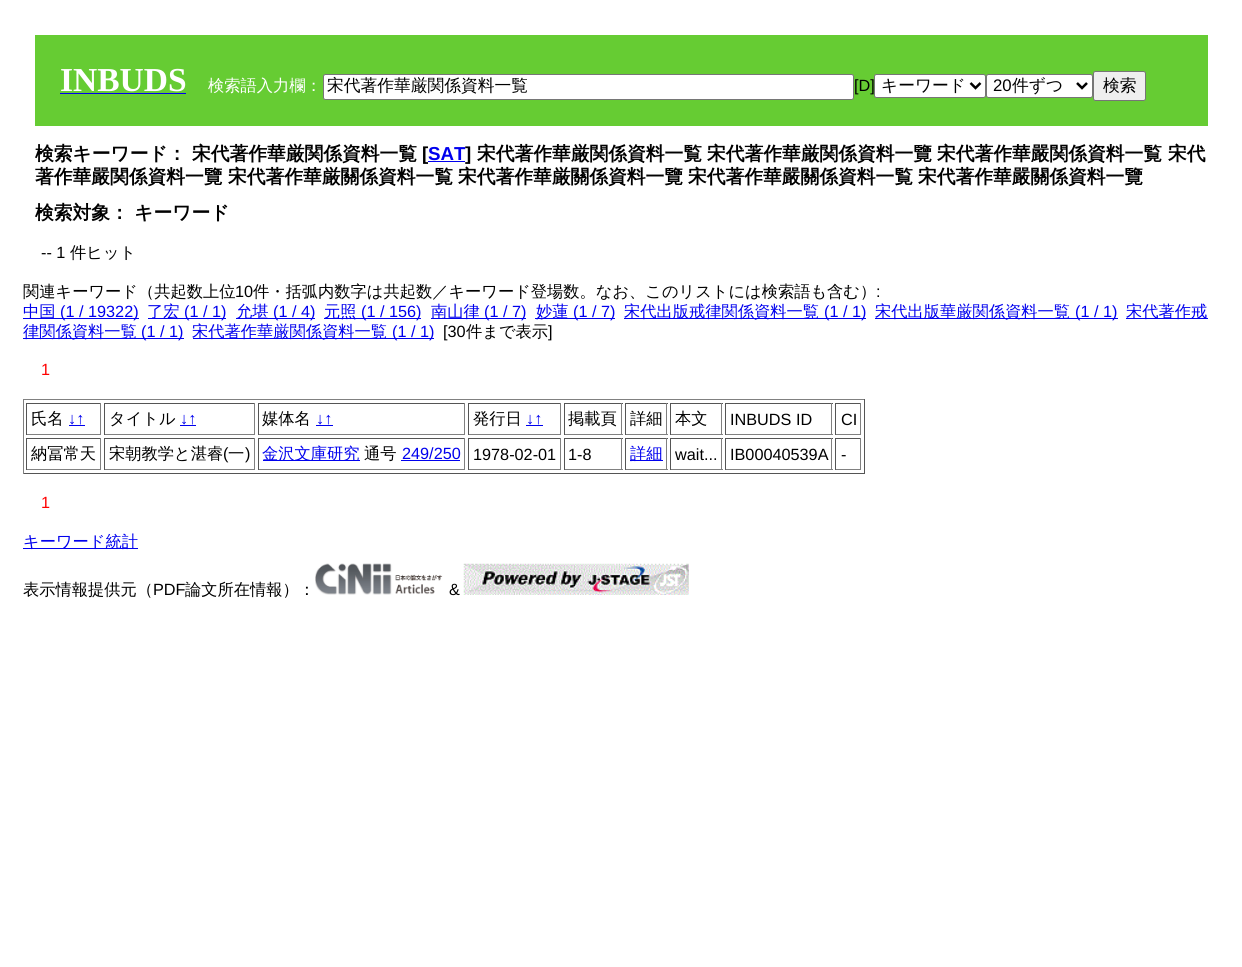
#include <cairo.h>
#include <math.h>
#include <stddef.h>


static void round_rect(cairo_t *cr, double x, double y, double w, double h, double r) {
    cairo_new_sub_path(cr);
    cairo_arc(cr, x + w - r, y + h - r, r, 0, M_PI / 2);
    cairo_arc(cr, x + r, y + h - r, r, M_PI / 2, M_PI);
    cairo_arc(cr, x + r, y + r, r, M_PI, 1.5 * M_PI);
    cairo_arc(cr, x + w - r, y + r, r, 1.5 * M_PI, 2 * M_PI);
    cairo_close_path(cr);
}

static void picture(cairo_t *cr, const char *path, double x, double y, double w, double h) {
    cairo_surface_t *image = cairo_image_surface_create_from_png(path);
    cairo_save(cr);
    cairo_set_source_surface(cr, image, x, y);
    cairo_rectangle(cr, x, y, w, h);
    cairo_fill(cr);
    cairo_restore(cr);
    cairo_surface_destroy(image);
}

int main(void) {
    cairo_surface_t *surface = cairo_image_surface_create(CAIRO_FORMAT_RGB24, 1242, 967);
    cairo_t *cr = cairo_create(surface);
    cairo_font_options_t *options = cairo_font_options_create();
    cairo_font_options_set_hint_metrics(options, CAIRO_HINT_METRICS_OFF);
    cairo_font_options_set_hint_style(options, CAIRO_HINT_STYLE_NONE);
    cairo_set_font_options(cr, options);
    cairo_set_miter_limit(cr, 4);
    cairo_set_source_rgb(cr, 1, 1, 1);
    cairo_paint(cr);
    cairo_set_source_rgb(cr, 0.4, 0.8, 0.2);
    cairo_rectangle(cr, 35, 35, 1173, 91);
    cairo_fill(cr);
    cairo_select_font_face(cr, "Liberation Serif", CAIRO_FONT_SLANT_NORMAL, CAIRO_FONT_WEIGHT_BOLD);
    cairo_set_font_size(cr, 33.5);
    cairo_set_source_rgb(cr, 1, 1, 1);
    cairo_move_to(cr, 60, 91);
    cairo_show_text(cr, "INBUDS");
    cairo_set_source_rgb(cr, 0, 0, 0.933);
    cairo_rectangle(cr, 60, 93, 126, 1);
    cairo_fill(cr);
    cairo_select_font_face(cr, "WenQuanYi Zen Hei Medium", CAIRO_FONT_SLANT_NORMAL, CAIRO_FONT_WEIGHT_NORMAL);
    cairo_set_font_size(cr, 16.25);
    cairo_set_source_rgb(cr, 1, 1, 1);
    cairo_move_to(cr, 208, 91);
    cairo_show_text(cr, "検索語入力欄：");
    round_rect(cr, 323.5, 74.5, 530, 25, 2);
    cairo_fill_preserve(cr);
    cairo_set_source_rgb(cr, 0.463, 0.463, 0.463);
    cairo_set_line_width(cr, 1);
    cairo_stroke(cr);
    cairo_set_font_size(cr, 16.75);
    cairo_set_source_rgb(cr, 0, 0, 0);
    cairo_move_to(cr, 327, 91);
    cairo_show_text(cr, "宋代著作華厳関係資料一覧");
    cairo_select_font_face(cr, "Liberation Sans", CAIRO_FONT_SLANT_NORMAL, CAIRO_FONT_WEIGHT_NORMAL);
    cairo_set_font_size(cr, 16.25);
    cairo_move_to(cr, 854, 91);
    cairo_show_text(cr, "[D]");
    cairo_set_source_rgb(cr, 1, 1, 1);
    round_rect(cr, 874.5, 74.5, 111, 23, 2);
    cairo_fill_preserve(cr);
    cairo_set_source_rgb(cr, 0.463, 0.463, 0.463);
    cairo_stroke(cr);
    cairo_new_path(cr);
    cairo_move_to(cr, 970.5, 83);
    cairo_line_to(cr, 975.5, 88);
    cairo_line_to(cr, 980.5, 83);
    cairo_set_source_rgb(cr, 0, 0, 0);
    cairo_set_line_width(cr, 2.5);
    cairo_stroke(cr);
    cairo_select_font_face(cr, "WenQuanYi Zen Hei Medium", CAIRO_FONT_SLANT_NORMAL, CAIRO_FONT_WEIGHT_NORMAL);
    cairo_set_font_size(cr, 16.75);
    cairo_move_to(cr, 881, 91);
    cairo_show_text(cr, "キーワード");
    cairo_set_source_rgb(cr, 1, 1, 1);
    round_rect(cr, 986.5, 74.5, 106, 23, 2);
    cairo_fill_preserve(cr);
    cairo_set_source_rgb(cr, 0.463, 0.463, 0.463);
    cairo_set_line_width(cr, 1);
    cairo_stroke(cr);
    cairo_new_path(cr);
    cairo_move_to(cr, 1077, 83);
    cairo_line_to(cr, 1082, 88);
    cairo_line_to(cr, 1087, 83);
    cairo_set_source_rgb(cr, 0, 0, 0);
    cairo_set_line_width(cr, 2.5);
    cairo_stroke(cr);
    cairo_select_font_face(cr, "Liberation Sans", CAIRO_FONT_SLANT_NORMAL, CAIRO_FONT_WEIGHT_NORMAL);
    cairo_move_to(cr, 993, 91);
    cairo_show_text(cr, "20");
    cairo_select_font_face(cr, "WenQuanYi Zen Hei Medium", CAIRO_FONT_SLANT_NORMAL, CAIRO_FONT_WEIGHT_NORMAL);
    cairo_move_to(cr, 1012, 91);
    cairo_show_text(cr, "件ずつ");
    cairo_set_source_rgb(cr, 0.937, 0.937, 0.937);
    round_rect(cr, 1093.5, 71.5, 52, 29, 2);
    cairo_fill_preserve(cr);
    cairo_set_source_rgb(cr, 0.463, 0.463, 0.463);
    cairo_set_line_width(cr, 1);
    cairo_stroke(cr);
    cairo_set_source_rgb(cr, 0, 0, 0);
    cairo_move_to(cr, 1103, 91);
    cairo_show_text(cr, "検索");
    cairo_select_font_face(cr, "WenQuanYi Zen Hei", CAIRO_FONT_SLANT_NORMAL, CAIRO_FONT_WEIGHT_BOLD);
    cairo_set_font_size(cr, 18.75);
    cairo_move_to(cr, 35, 160);
    cairo_show_text(cr, "検索キーワード： 宋代著作華厳関係資料一覧");
    cairo_select_font_face(cr, "Liberation Sans", CAIRO_FONT_SLANT_NORMAL, CAIRO_FONT_WEIGHT_BOLD);
    cairo_move_to(cr, 422, 160);
    cairo_show_text(cr, "[");
    cairo_set_source_rgb(cr, 0, 0, 0.933);
    cairo_move_to(cr, 428, 160);
    cairo_show_text(cr, "SAT");
    cairo_rectangle(cr, 428, 161, 37, 1);
    cairo_fill(cr);
    cairo_set_source_rgb(cr, 0, 0, 0);
    cairo_move_to(cr, 465, 160);
    cairo_show_text(cr, "]");
    cairo_select_font_face(cr, "WenQuanYi Zen Hei", CAIRO_FONT_SLANT_NORMAL, CAIRO_FONT_WEIGHT_BOLD);
    cairo_move_to(cr, 477, 160);
    cairo_show_text(cr, "宋代著作華厳関係資料一覧");
    cairo_move_to(cr, 707, 160);
    cairo_show_text(cr, "宋代著作華厳関係資料一覽");
    cairo_move_to(cr, 937, 160);
    cairo_show_text(cr, "宋代著作華嚴関係資料一覧");
    cairo_move_to(cr, 1168, 160);
    cairo_show_text(cr, "宋代");
    cairo_move_to(cr, 35, 183);
    cairo_show_text(cr, "著作華嚴関係資料一覽");
    cairo_move_to(cr, 228, 183);
    cairo_show_text(cr, "宋代著作華厳關係資料一覧");
    cairo_move_to(cr, 458, 183);
    cairo_show_text(cr, "宋代著作華厳關係資料一覽");
    cairo_move_to(cr, 688, 183);
    cairo_show_text(cr, "宋代著作華嚴關係資料一覧");
    cairo_move_to(cr, 918, 183);
    cairo_show_text(cr, "宋代著作華嚴關係資料一覽");
    cairo_move_to(cr, 35, 219);
    cairo_show_text(cr, "検索対象： キーワード");
    cairo_select_font_face(cr, "Liberation Sans", CAIRO_FONT_SLANT_NORMAL, CAIRO_FONT_WEIGHT_NORMAL);
    cairo_set_font_size(cr, 16.25);
    cairo_move_to(cr, 41, 258);
    cairo_show_text(cr, "-- 1");
    cairo_select_font_face(cr, "WenQuanYi Zen Hei Medium", CAIRO_FONT_SLANT_NORMAL, CAIRO_FONT_WEIGHT_NORMAL);
    cairo_move_to(cr, 70, 258);
    cairo_show_text(cr, "件ヒット");
    cairo_move_to(cr, 23, 297);
    cairo_show_text(cr, "関連キーワード（共起数上位");
    cairo_select_font_face(cr, "Liberation Sans", CAIRO_FONT_SLANT_NORMAL, CAIRO_FONT_WEIGHT_NORMAL);
    cairo_move_to(cr, 235, 297);
    cairo_show_text(cr, "10");
    cairo_select_font_face(cr, "WenQuanYi Zen Hei Medium", CAIRO_FONT_SLANT_NORMAL, CAIRO_FONT_WEIGHT_NORMAL);
    cairo_move_to(cr, 253, 297);
    cairo_show_text(cr, "件・括弧内数字は共起数／キーワード登場数。なお、このリストには検索語も含む）");
    cairo_select_font_face(cr, "Liberation Sans", CAIRO_FONT_SLANT_NORMAL, CAIRO_FONT_WEIGHT_NORMAL);
    cairo_move_to(cr, 876, 297);
    cairo_show_text(cr, ":");
    cairo_set_source_rgb(cr, 0, 0, 0.933);
    cairo_rectangle(cr, 23, 318, 116, 1);
    cairo_fill(cr);
    cairo_select_font_face(cr, "WenQuanYi Zen Hei Medium", CAIRO_FONT_SLANT_NORMAL, CAIRO_FONT_WEIGHT_NORMAL);
    cairo_move_to(cr, 23, 317);
    cairo_show_text(cr, "中国");
    cairo_select_font_face(cr, "Liberation Sans", CAIRO_FONT_SLANT_NORMAL, CAIRO_FONT_WEIGHT_NORMAL);
    cairo_move_to(cr, 60, 317);
    cairo_show_text(cr, "(1 / 19322)");
    cairo_rectangle(cr, 148, 318, 78, 1);
    cairo_fill(cr);
    cairo_select_font_face(cr, "WenQuanYi Zen Hei Medium", CAIRO_FONT_SLANT_NORMAL, CAIRO_FONT_WEIGHT_NORMAL);
    cairo_move_to(cr, 147, 317);
    cairo_show_text(cr, "了宏");
    cairo_select_font_face(cr, "Liberation Sans", CAIRO_FONT_SLANT_NORMAL, CAIRO_FONT_WEIGHT_NORMAL);
    cairo_move_to(cr, 184, 317);
    cairo_show_text(cr, "(1 / 1)");
    cairo_rectangle(cr, 236, 318, 79, 1);
    cairo_fill(cr);
    cairo_select_font_face(cr, "WenQuanYi Zen Hei Medium", CAIRO_FONT_SLANT_NORMAL, CAIRO_FONT_WEIGHT_NORMAL);
    cairo_move_to(cr, 236, 317);
    cairo_show_text(cr, "允堪");
    cairo_select_font_face(cr, "Liberation Sans", CAIRO_FONT_SLANT_NORMAL, CAIRO_FONT_WEIGHT_NORMAL);
    cairo_move_to(cr, 273, 317);
    cairo_show_text(cr, "(1 / 4)");
    cairo_rectangle(cr, 324, 318, 97, 1);
    cairo_fill(cr);
    cairo_select_font_face(cr, "WenQuanYi Zen Hei Medium", CAIRO_FONT_SLANT_NORMAL, CAIRO_FONT_WEIGHT_NORMAL);
    cairo_move_to(cr, 324, 317);
    cairo_show_text(cr, "元照");
    cairo_select_font_face(cr, "Liberation Sans", CAIRO_FONT_SLANT_NORMAL, CAIRO_FONT_WEIGHT_NORMAL);
    cairo_move_to(cr, 361, 317);
    cairo_show_text(cr, "(1 / 156)");
    cairo_rectangle(cr, 431, 318, 95, 1);
    cairo_fill(cr);
    cairo_select_font_face(cr, "WenQuanYi Zen Hei Medium", CAIRO_FONT_SLANT_NORMAL, CAIRO_FONT_WEIGHT_NORMAL);
    cairo_move_to(cr, 431, 317);
    cairo_show_text(cr, "南山律");
    cairo_select_font_face(cr, "Liberation Sans", CAIRO_FONT_SLANT_NORMAL, CAIRO_FONT_WEIGHT_NORMAL);
    cairo_move_to(cr, 484, 317);
    cairo_show_text(cr, "(1 / 7)");
    cairo_rectangle(cr, 535, 318, 80, 1);
    cairo_fill(cr);
    cairo_select_font_face(cr, "WenQuanYi Zen Hei Medium", CAIRO_FONT_SLANT_NORMAL, CAIRO_FONT_WEIGHT_NORMAL);
    cairo_move_to(cr, 536, 317);
    cairo_show_text(cr, "妙蓮");
    cairo_select_font_face(cr, "Liberation Sans", CAIRO_FONT_SLANT_NORMAL, CAIRO_FONT_WEIGHT_NORMAL);
    cairo_move_to(cr, 573, 317);
    cairo_show_text(cr, "(1 / 7)");
    cairo_rectangle(cr, 624, 318, 242, 1);
    cairo_fill(cr);
    cairo_select_font_face(cr, "WenQuanYi Zen Hei Medium", CAIRO_FONT_SLANT_NORMAL, CAIRO_FONT_WEIGHT_NORMAL);
    cairo_move_to(cr, 624, 317);
    cairo_show_text(cr, "宋代出版戒律関係資料一覧");
    cairo_select_font_face(cr, "Liberation Sans", CAIRO_FONT_SLANT_NORMAL, CAIRO_FONT_WEIGHT_NORMAL);
    cairo_move_to(cr, 824, 317);
    cairo_show_text(cr, "(1 / 1)");
    cairo_rectangle(cr, 875, 318, 243, 1);
    cairo_fill(cr);
    cairo_select_font_face(cr, "WenQuanYi Zen Hei Medium", CAIRO_FONT_SLANT_NORMAL, CAIRO_FONT_WEIGHT_NORMAL);
    cairo_move_to(cr, 875, 317);
    cairo_show_text(cr, "宋代出版華厳関係資料一覧");
    cairo_select_font_face(cr, "Liberation Sans", CAIRO_FONT_SLANT_NORMAL, CAIRO_FONT_WEIGHT_NORMAL);
    cairo_move_to(cr, 1075, 317);
    cairo_show_text(cr, "(1 / 1)");
    cairo_rectangle(cr, 1126, 318, 82, 1);
    cairo_fill(cr);
    cairo_select_font_face(cr, "WenQuanYi Zen Hei Medium", CAIRO_FONT_SLANT_NORMAL, CAIRO_FONT_WEIGHT_NORMAL);
    cairo_move_to(cr, 1126, 317);
    cairo_show_text(cr, "宋代著作戒");
    cairo_rectangle(cr, 23, 338, 161, 1);
    cairo_fill(cr);
    cairo_move_to(cr, 23, 337);
    cairo_show_text(cr, "律関係資料一覧");
    cairo_select_font_face(cr, "Liberation Sans", CAIRO_FONT_SLANT_NORMAL, CAIRO_FONT_WEIGHT_NORMAL);
    cairo_move_to(cr, 141, 337);
    cairo_show_text(cr, "(1 / 1)");
    cairo_rectangle(cr, 193, 338, 241, 1);
    cairo_fill(cr);
    cairo_select_font_face(cr, "WenQuanYi Zen Hei Medium", CAIRO_FONT_SLANT_NORMAL, CAIRO_FONT_WEIGHT_NORMAL);
    cairo_move_to(cr, 192, 337);
    cairo_show_text(cr, "宋代著作華厳関係資料一覧");
    cairo_select_font_face(cr, "Liberation Sans", CAIRO_FONT_SLANT_NORMAL, CAIRO_FONT_WEIGHT_NORMAL);
    cairo_move_to(cr, 392, 337);
    cairo_show_text(cr, "(1 / 1)");
    cairo_set_source_rgb(cr, 0, 0, 0);
    cairo_move_to(cr, 443, 337);
    cairo_show_text(cr, "[30");
    cairo_select_font_face(cr, "WenQuanYi Zen Hei Medium", CAIRO_FONT_SLANT_NORMAL, CAIRO_FONT_WEIGHT_NORMAL);
    cairo_move_to(cr, 466, 337);
    cairo_show_text(cr, "件まで表示");
    cairo_select_font_face(cr, "Liberation Sans", CAIRO_FONT_SLANT_NORMAL, CAIRO_FONT_WEIGHT_NORMAL);
    cairo_move_to(cr, 548, 337);
    cairo_show_text(cr, "]");
    cairo_set_source_rgb(cr, 1, 0, 0);
    cairo_move_to(cr, 41, 375);
    cairo_show_text(cr, "1");
    cairo_set_source_rgb(cr, 0.502, 0.502, 0.502);
    cairo_rectangle(cr, 23, 399, 842, 1);
    cairo_fill(cr);
    cairo_set_source_rgb(cr, 0.333, 0.333, 0.333);
    cairo_rectangle(cr, 864, 399, 1, 75);
    cairo_fill(cr);
    cairo_rectangle(cr, 23, 473, 842, 1);
    cairo_fill(cr);
    cairo_set_source_rgb(cr, 0.502, 0.502, 0.502);
    cairo_rectangle(cr, 23, 399, 1, 75);
    cairo_fill(cr);
    cairo_set_source_rgb(cr, 0.333, 0.333, 0.333);
    cairo_rectangle(cr, 26, 403, 75, 1);
    cairo_fill(cr);
    cairo_set_source_rgb(cr, 0.502, 0.502, 0.502);
    cairo_rectangle(cr, 100, 403, 1, 32);
    cairo_fill(cr);
    cairo_rectangle(cr, 26, 434, 75, 1);
    cairo_fill(cr);
    cairo_set_source_rgb(cr, 0.333, 0.333, 0.333);
    cairo_rectangle(cr, 26, 403, 1, 32);
    cairo_fill(cr);
    cairo_select_font_face(cr, "WenQuanYi Zen Hei Medium", CAIRO_FONT_SLANT_NORMAL, CAIRO_FONT_WEIGHT_NORMAL);
    cairo_set_source_rgb(cr, 0, 0, 0);
    cairo_move_to(cr, 31, 424);
    cairo_show_text(cr, "氏名");
    cairo_select_font_face(cr, "Liberation Sans", CAIRO_FONT_SLANT_NORMAL, CAIRO_FONT_WEIGHT_NORMAL);
    cairo_set_source_rgb(cr, 0, 0, 0.933);
    cairo_move_to(cr, 68, 424);
    cairo_show_text(cr, "↓↑");
    cairo_rectangle(cr, 69, 425, 16, 1);
    cairo_fill(cr);
    cairo_set_source_rgb(cr, 0.333, 0.333, 0.333);
    cairo_rectangle(cr, 104, 403, 151, 1);
    cairo_fill(cr);
    cairo_set_source_rgb(cr, 0.502, 0.502, 0.502);
    cairo_rectangle(cr, 254, 403, 1, 32);
    cairo_fill(cr);
    cairo_rectangle(cr, 104, 434, 151, 1);
    cairo_fill(cr);
    cairo_set_source_rgb(cr, 0.333, 0.333, 0.333);
    cairo_rectangle(cr, 104, 403, 1, 32);
    cairo_fill(cr);
    cairo_select_font_face(cr, "WenQuanYi Zen Hei Medium", CAIRO_FONT_SLANT_NORMAL, CAIRO_FONT_WEIGHT_NORMAL);
    cairo_set_source_rgb(cr, 0, 0, 0);
    cairo_move_to(cr, 109, 424);
    cairo_show_text(cr, "タイトル");
    cairo_select_font_face(cr, "Liberation Sans", CAIRO_FONT_SLANT_NORMAL, CAIRO_FONT_WEIGHT_NORMAL);
    cairo_set_source_rgb(cr, 0, 0, 0.933);
    cairo_move_to(cr, 180, 424);
    cairo_show_text(cr, "↓↑");
    cairo_rectangle(cr, 180, 425, 16, 1);
    cairo_fill(cr);
    cairo_set_source_rgb(cr, 0.333, 0.333, 0.333);
    cairo_rectangle(cr, 258, 403, 207, 1);
    cairo_fill(cr);
    cairo_set_source_rgb(cr, 0.502, 0.502, 0.502);
    cairo_rectangle(cr, 464, 403, 1, 32);
    cairo_fill(cr);
    cairo_rectangle(cr, 258, 434, 207, 1);
    cairo_fill(cr);
    cairo_set_source_rgb(cr, 0.333, 0.333, 0.333);
    cairo_rectangle(cr, 258, 403, 1, 32);
    cairo_fill(cr);
    cairo_select_font_face(cr, "WenQuanYi Zen Hei Medium", CAIRO_FONT_SLANT_NORMAL, CAIRO_FONT_WEIGHT_NORMAL);
    cairo_set_source_rgb(cr, 0, 0, 0);
    cairo_move_to(cr, 262, 424);
    cairo_show_text(cr, "媒体名");
    cairo_select_font_face(cr, "Liberation Sans", CAIRO_FONT_SLANT_NORMAL, CAIRO_FONT_WEIGHT_NORMAL);
    cairo_set_source_rgb(cr, 0, 0, 0.933);
    cairo_move_to(cr, 316, 424);
    cairo_show_text(cr, "↓↑");
    cairo_rectangle(cr, 316, 425, 17, 1);
    cairo_fill(cr);
    cairo_set_source_rgb(cr, 0.333, 0.333, 0.333);
    cairo_rectangle(cr, 468, 403, 93, 1);
    cairo_fill(cr);
    cairo_set_source_rgb(cr, 0.502, 0.502, 0.502);
    cairo_rectangle(cr, 560, 403, 1, 32);
    cairo_fill(cr);
    cairo_rectangle(cr, 468, 434, 93, 1);
    cairo_fill(cr);
    cairo_set_source_rgb(cr, 0.333, 0.333, 0.333);
    cairo_rectangle(cr, 468, 403, 1, 32);
    cairo_fill(cr);
    cairo_select_font_face(cr, "WenQuanYi Zen Hei Medium", CAIRO_FONT_SLANT_NORMAL, CAIRO_FONT_WEIGHT_NORMAL);
    cairo_set_source_rgb(cr, 0, 0, 0);
    cairo_move_to(cr, 473, 424);
    cairo_show_text(cr, "発行日");
    cairo_select_font_face(cr, "Liberation Sans", CAIRO_FONT_SLANT_NORMAL, CAIRO_FONT_WEIGHT_NORMAL);
    cairo_set_source_rgb(cr, 0, 0, 0.933);
    cairo_move_to(cr, 526, 424);
    cairo_show_text(cr, "↓↑");
    cairo_rectangle(cr, 526, 425, 17, 1);
    cairo_fill(cr);
    cairo_set_source_rgb(cr, 0.333, 0.333, 0.333);
    cairo_rectangle(cr, 564, 403, 59, 1);
    cairo_fill(cr);
    cairo_set_source_rgb(cr, 0.502, 0.502, 0.502);
    cairo_rectangle(cr, 621, 403, 1, 32);
    cairo_fill(cr);
    cairo_rectangle(cr, 564, 434, 59, 1);
    cairo_fill(cr);
    cairo_set_source_rgb(cr, 0.333, 0.333, 0.333);
    cairo_rectangle(cr, 564, 403, 1, 32);
    cairo_fill(cr);
    cairo_select_font_face(cr, "WenQuanYi Zen Hei Medium", CAIRO_FONT_SLANT_NORMAL, CAIRO_FONT_WEIGHT_NORMAL);
    cairo_set_source_rgb(cr, 0, 0, 0);
    cairo_move_to(cr, 568, 424);
    cairo_show_text(cr, "掲載頁");
    cairo_set_source_rgb(cr, 0.333, 0.333, 0.333);
    cairo_rectangle(cr, 625, 403, 43, 1);
    cairo_fill(cr);
    cairo_set_source_rgb(cr, 0.502, 0.502, 0.502);
    cairo_rectangle(cr, 666, 403, 1, 32);
    cairo_fill(cr);
    cairo_rectangle(cr, 625, 434, 43, 1);
    cairo_fill(cr);
    cairo_set_source_rgb(cr, 0.333, 0.333, 0.333);
    cairo_rectangle(cr, 625, 403, 1, 32);
    cairo_fill(cr);
    cairo_set_source_rgb(cr, 0, 0, 0);
    cairo_move_to(cr, 630, 424);
    cairo_show_text(cr, "詳細");
    cairo_set_source_rgb(cr, 0.333, 0.333, 0.333);
    cairo_rectangle(cr, 670, 403, 53, 1);
    cairo_fill(cr);
    cairo_set_source_rgb(cr, 0.502, 0.502, 0.502);
    cairo_rectangle(cr, 721, 403, 1, 32);
    cairo_fill(cr);
    cairo_rectangle(cr, 670, 434, 53, 1);
    cairo_fill(cr);
    cairo_set_source_rgb(cr, 0.333, 0.333, 0.333);
    cairo_rectangle(cr, 670, 403, 1, 32);
    cairo_fill(cr);
    cairo_set_source_rgb(cr, 0, 0, 0);
    cairo_move_to(cr, 675, 424);
    cairo_show_text(cr, "本文");
    cairo_set_source_rgb(cr, 0.333, 0.333, 0.333);
    cairo_rectangle(cr, 725, 403, 108, 1);
    cairo_fill(cr);
    cairo_set_source_rgb(cr, 0.502, 0.502, 0.502);
    cairo_rectangle(cr, 831, 403, 1, 32);
    cairo_fill(cr);
    cairo_rectangle(cr, 725, 434, 108, 1);
    cairo_fill(cr);
    cairo_set_source_rgb(cr, 0.333, 0.333, 0.333);
    cairo_rectangle(cr, 725, 403, 1, 32);
    cairo_fill(cr);
    cairo_select_font_face(cr, "Liberation Sans", CAIRO_FONT_SLANT_NORMAL, CAIRO_FONT_WEIGHT_NORMAL);
    cairo_set_source_rgb(cr, 0, 0, 0);
    cairo_move_to(cr, 730, 425);
    cairo_show_text(cr, "INBUDS ID");
    cairo_set_source_rgb(cr, 0.333, 0.333, 0.333);
    cairo_rectangle(cr, 835, 403, 26, 1);
    cairo_fill(cr);
    cairo_set_source_rgb(cr, 0.502, 0.502, 0.502);
    cairo_rectangle(cr, 860, 403, 1, 32);
    cairo_fill(cr);
    cairo_rectangle(cr, 835, 434, 26, 1);
    cairo_fill(cr);
    cairo_set_source_rgb(cr, 0.333, 0.333, 0.333);
    cairo_rectangle(cr, 835, 403, 1, 32);
    cairo_fill(cr);
    cairo_set_source_rgb(cr, 0, 0, 0);
    cairo_move_to(cr, 841, 425);
    cairo_show_text(cr, "CI");
    cairo_set_source_rgb(cr, 0.333, 0.333, 0.333);
    cairo_rectangle(cr, 26, 438, 75, 1);
    cairo_fill(cr);
    cairo_set_source_rgb(cr, 0.502, 0.502, 0.502);
    cairo_rectangle(cr, 100, 438, 1, 32);
    cairo_fill(cr);
    cairo_rectangle(cr, 26, 469, 75, 1);
    cairo_fill(cr);
    cairo_set_source_rgb(cr, 0.333, 0.333, 0.333);
    cairo_rectangle(cr, 26, 438, 1, 32);
    cairo_fill(cr);
    cairo_select_font_face(cr, "WenQuanYi Zen Hei Medium", CAIRO_FONT_SLANT_NORMAL, CAIRO_FONT_WEIGHT_NORMAL);
    cairo_set_source_rgb(cr, 0, 0, 0);
    cairo_move_to(cr, 31, 459);
    cairo_show_text(cr, "納冨常天");
    cairo_set_source_rgb(cr, 0.333, 0.333, 0.333);
    cairo_rectangle(cr, 104, 438, 151, 1);
    cairo_fill(cr);
    cairo_set_source_rgb(cr, 0.502, 0.502, 0.502);
    cairo_rectangle(cr, 254, 438, 1, 32);
    cairo_fill(cr);
    cairo_rectangle(cr, 104, 469, 151, 1);
    cairo_fill(cr);
    cairo_set_source_rgb(cr, 0.333, 0.333, 0.333);
    cairo_rectangle(cr, 104, 438, 1, 32);
    cairo_fill(cr);
    cairo_set_source_rgb(cr, 0, 0, 0);
    cairo_move_to(cr, 109, 459);
    cairo_show_text(cr, "宋朝教学と湛睿");
    cairo_select_font_face(cr, "Liberation Sans", CAIRO_FONT_SLANT_NORMAL, CAIRO_FONT_WEIGHT_NORMAL);
    cairo_move_to(cr, 223, 459);
    cairo_show_text(cr, "(");
    cairo_select_font_face(cr, "WenQuanYi Zen Hei Medium", CAIRO_FONT_SLANT_NORMAL, CAIRO_FONT_WEIGHT_NORMAL);
    cairo_move_to(cr, 228, 459);
    cairo_show_text(cr, "一");
    cairo_select_font_face(cr, "Liberation Sans", CAIRO_FONT_SLANT_NORMAL, CAIRO_FONT_WEIGHT_NORMAL);
    cairo_move_to(cr, 245, 459);
    cairo_show_text(cr, ")");
    cairo_set_source_rgb(cr, 0.333, 0.333, 0.333);
    cairo_rectangle(cr, 258, 438, 207, 1);
    cairo_fill(cr);
    cairo_set_source_rgb(cr, 0.502, 0.502, 0.502);
    cairo_rectangle(cr, 464, 438, 1, 32);
    cairo_fill(cr);
    cairo_rectangle(cr, 258, 469, 207, 1);
    cairo_fill(cr);
    cairo_set_source_rgb(cr, 0.333, 0.333, 0.333);
    cairo_rectangle(cr, 258, 438, 1, 32);
    cairo_fill(cr);
    cairo_set_source_rgb(cr, 0, 0, 0.933);
    cairo_rectangle(cr, 263, 460, 97, 1);
    cairo_fill(cr);
    cairo_select_font_face(cr, "WenQuanYi Zen Hei Medium", CAIRO_FONT_SLANT_NORMAL, CAIRO_FONT_WEIGHT_NORMAL);
    cairo_move_to(cr, 262, 459);
    cairo_show_text(cr, "金沢文庫研究");
    cairo_set_source_rgb(cr, 0, 0, 0);
    cairo_move_to(cr, 364, 459);
    cairo_show_text(cr, "通号");
    cairo_select_font_face(cr, "Liberation Sans", CAIRO_FONT_SLANT_NORMAL, CAIRO_FONT_WEIGHT_NORMAL);
    cairo_set_source_rgb(cr, 0, 0, 0.933);
    cairo_move_to(cr, 402, 459);
    cairo_show_text(cr, "249/250");
    cairo_rectangle(cr, 401, 460, 59, 1);
    cairo_fill(cr);
    cairo_set_source_rgb(cr, 0.333, 0.333, 0.333);
    cairo_rectangle(cr, 468, 438, 93, 1);
    cairo_fill(cr);
    cairo_set_source_rgb(cr, 0.502, 0.502, 0.502);
    cairo_rectangle(cr, 560, 438, 1, 32);
    cairo_fill(cr);
    cairo_rectangle(cr, 468, 469, 93, 1);
    cairo_fill(cr);
    cairo_set_source_rgb(cr, 0.333, 0.333, 0.333);
    cairo_rectangle(cr, 468, 438, 1, 32);
    cairo_fill(cr);
    cairo_set_source_rgb(cr, 0, 0, 0);
    cairo_move_to(cr, 473, 460);
    cairo_show_text(cr, "1978-02-01");
    cairo_set_source_rgb(cr, 0.333, 0.333, 0.333);
    cairo_rectangle(cr, 564, 438, 59, 1);
    cairo_fill(cr);
    cairo_set_source_rgb(cr, 0.502, 0.502, 0.502);
    cairo_rectangle(cr, 621, 438, 1, 32);
    cairo_fill(cr);
    cairo_rectangle(cr, 564, 469, 59, 1);
    cairo_fill(cr);
    cairo_set_source_rgb(cr, 0.333, 0.333, 0.333);
    cairo_rectangle(cr, 564, 438, 1, 32);
    cairo_fill(cr);
    cairo_set_source_rgb(cr, 0, 0, 0);
    cairo_move_to(cr, 568, 460);
    cairo_show_text(cr, "1-8");
    cairo_set_source_rgb(cr, 0.333, 0.333, 0.333);
    cairo_rectangle(cr, 625, 438, 43, 1);
    cairo_fill(cr);
    cairo_set_source_rgb(cr, 0.502, 0.502, 0.502);
    cairo_rectangle(cr, 666, 438, 1, 32);
    cairo_fill(cr);
    cairo_rectangle(cr, 625, 469, 43, 1);
    cairo_fill(cr);
    cairo_set_source_rgb(cr, 0.333, 0.333, 0.333);
    cairo_rectangle(cr, 625, 438, 1, 32);
    cairo_fill(cr);
    cairo_set_source_rgb(cr, 0, 0, 0.933);
    cairo_rectangle(cr, 630, 460, 33, 1);
    cairo_fill(cr);
    cairo_select_font_face(cr, "WenQuanYi Zen Hei Medium", CAIRO_FONT_SLANT_NORMAL, CAIRO_FONT_WEIGHT_NORMAL);
    cairo_move_to(cr, 630, 459);
    cairo_show_text(cr, "詳細");
    cairo_set_source_rgb(cr, 0.333, 0.333, 0.333);
    cairo_rectangle(cr, 670, 438, 53, 1);
    cairo_fill(cr);
    cairo_set_source_rgb(cr, 0.502, 0.502, 0.502);
    cairo_rectangle(cr, 721, 438, 1, 32);
    cairo_fill(cr);
    cairo_rectangle(cr, 670, 469, 53, 1);
    cairo_fill(cr);
    cairo_set_source_rgb(cr, 0.333, 0.333, 0.333);
    cairo_rectangle(cr, 670, 438, 1, 32);
    cairo_fill(cr);
    cairo_select_font_face(cr, "Liberation Sans", CAIRO_FONT_SLANT_NORMAL, CAIRO_FONT_WEIGHT_NORMAL);
    cairo_set_source_rgb(cr, 0, 0, 0);
    cairo_move_to(cr, 675, 460);
    cairo_show_text(cr, "wait...");
    cairo_set_source_rgb(cr, 0.333, 0.333, 0.333);
    cairo_rectangle(cr, 725, 438, 108, 1);
    cairo_fill(cr);
    cairo_set_source_rgb(cr, 0.502, 0.502, 0.502);
    cairo_rectangle(cr, 831, 438, 1, 32);
    cairo_fill(cr);
    cairo_rectangle(cr, 725, 469, 108, 1);
    cairo_fill(cr);
    cairo_set_source_rgb(cr, 0.333, 0.333, 0.333);
    cairo_rectangle(cr, 725, 438, 1, 32);
    cairo_fill(cr);
    cairo_set_source_rgb(cr, 0, 0, 0);
    cairo_move_to(cr, 730, 460);
    cairo_show_text(cr, "IB00040539A");
    cairo_set_source_rgb(cr, 0.333, 0.333, 0.333);
    cairo_rectangle(cr, 835, 438, 26, 1);
    cairo_fill(cr);
    cairo_set_source_rgb(cr, 0.502, 0.502, 0.502);
    cairo_rectangle(cr, 860, 438, 1, 32);
    cairo_fill(cr);
    cairo_rectangle(cr, 835, 469, 26, 1);
    cairo_fill(cr);
    cairo_set_source_rgb(cr, 0.333, 0.333, 0.333);
    cairo_rectangle(cr, 835, 438, 1, 32);
    cairo_fill(cr);
    cairo_set_source_rgb(cr, 0, 0, 0);
    cairo_move_to(cr, 841, 460);
    cairo_show_text(cr, "-");
    cairo_set_source_rgb(cr, 1, 0, 0);
    cairo_move_to(cr, 41, 508);
    cairo_show_text(cr, "1");
    cairo_set_source_rgb(cr, 0, 0, 0.933);
    cairo_rectangle(cr, 23, 548, 115, 1);
    cairo_fill(cr);
    cairo_select_font_face(cr, "WenQuanYi Zen Hei Medium", CAIRO_FONT_SLANT_NORMAL, CAIRO_FONT_WEIGHT_NORMAL);
    cairo_move_to(cr, 23, 547);
    cairo_show_text(cr, "キーワード統計");
    cairo_set_source_rgb(cr, 0, 0, 0);
    cairo_move_to(cr, 23, 595);
    cairo_show_text(cr, "表示情報提供元（");
    cairo_select_font_face(cr, "Liberation Sans", CAIRO_FONT_SLANT_NORMAL, CAIRO_FONT_WEIGHT_NORMAL);
    cairo_move_to(cr, 153, 595);
    cairo_show_text(cr, "PDF");
    cairo_select_font_face(cr, "WenQuanYi Zen Hei Medium", CAIRO_FONT_SLANT_NORMAL, CAIRO_FONT_WEIGHT_NORMAL);
    cairo_move_to(cr, 185, 595);
    cairo_show_text(cr, "論文所在情報）：");
    picture(cr, "img1.png", 315, 563, 128, 32);
    cairo_select_font_face(cr, "Liberation Sans", CAIRO_FONT_SLANT_NORMAL, CAIRO_FONT_WEIGHT_NORMAL);
    cairo_move_to(cr, 449, 595);
    cairo_show_text(cr, "&");
    picture(cr, "img2.png", 463, 563, 226, 32);
    cairo_surface_write_to_png(surface, "page.png");
    cairo_font_options_destroy(options);
    cairo_destroy(cr);
    cairo_surface_destroy(surface);
    return 0;
}
